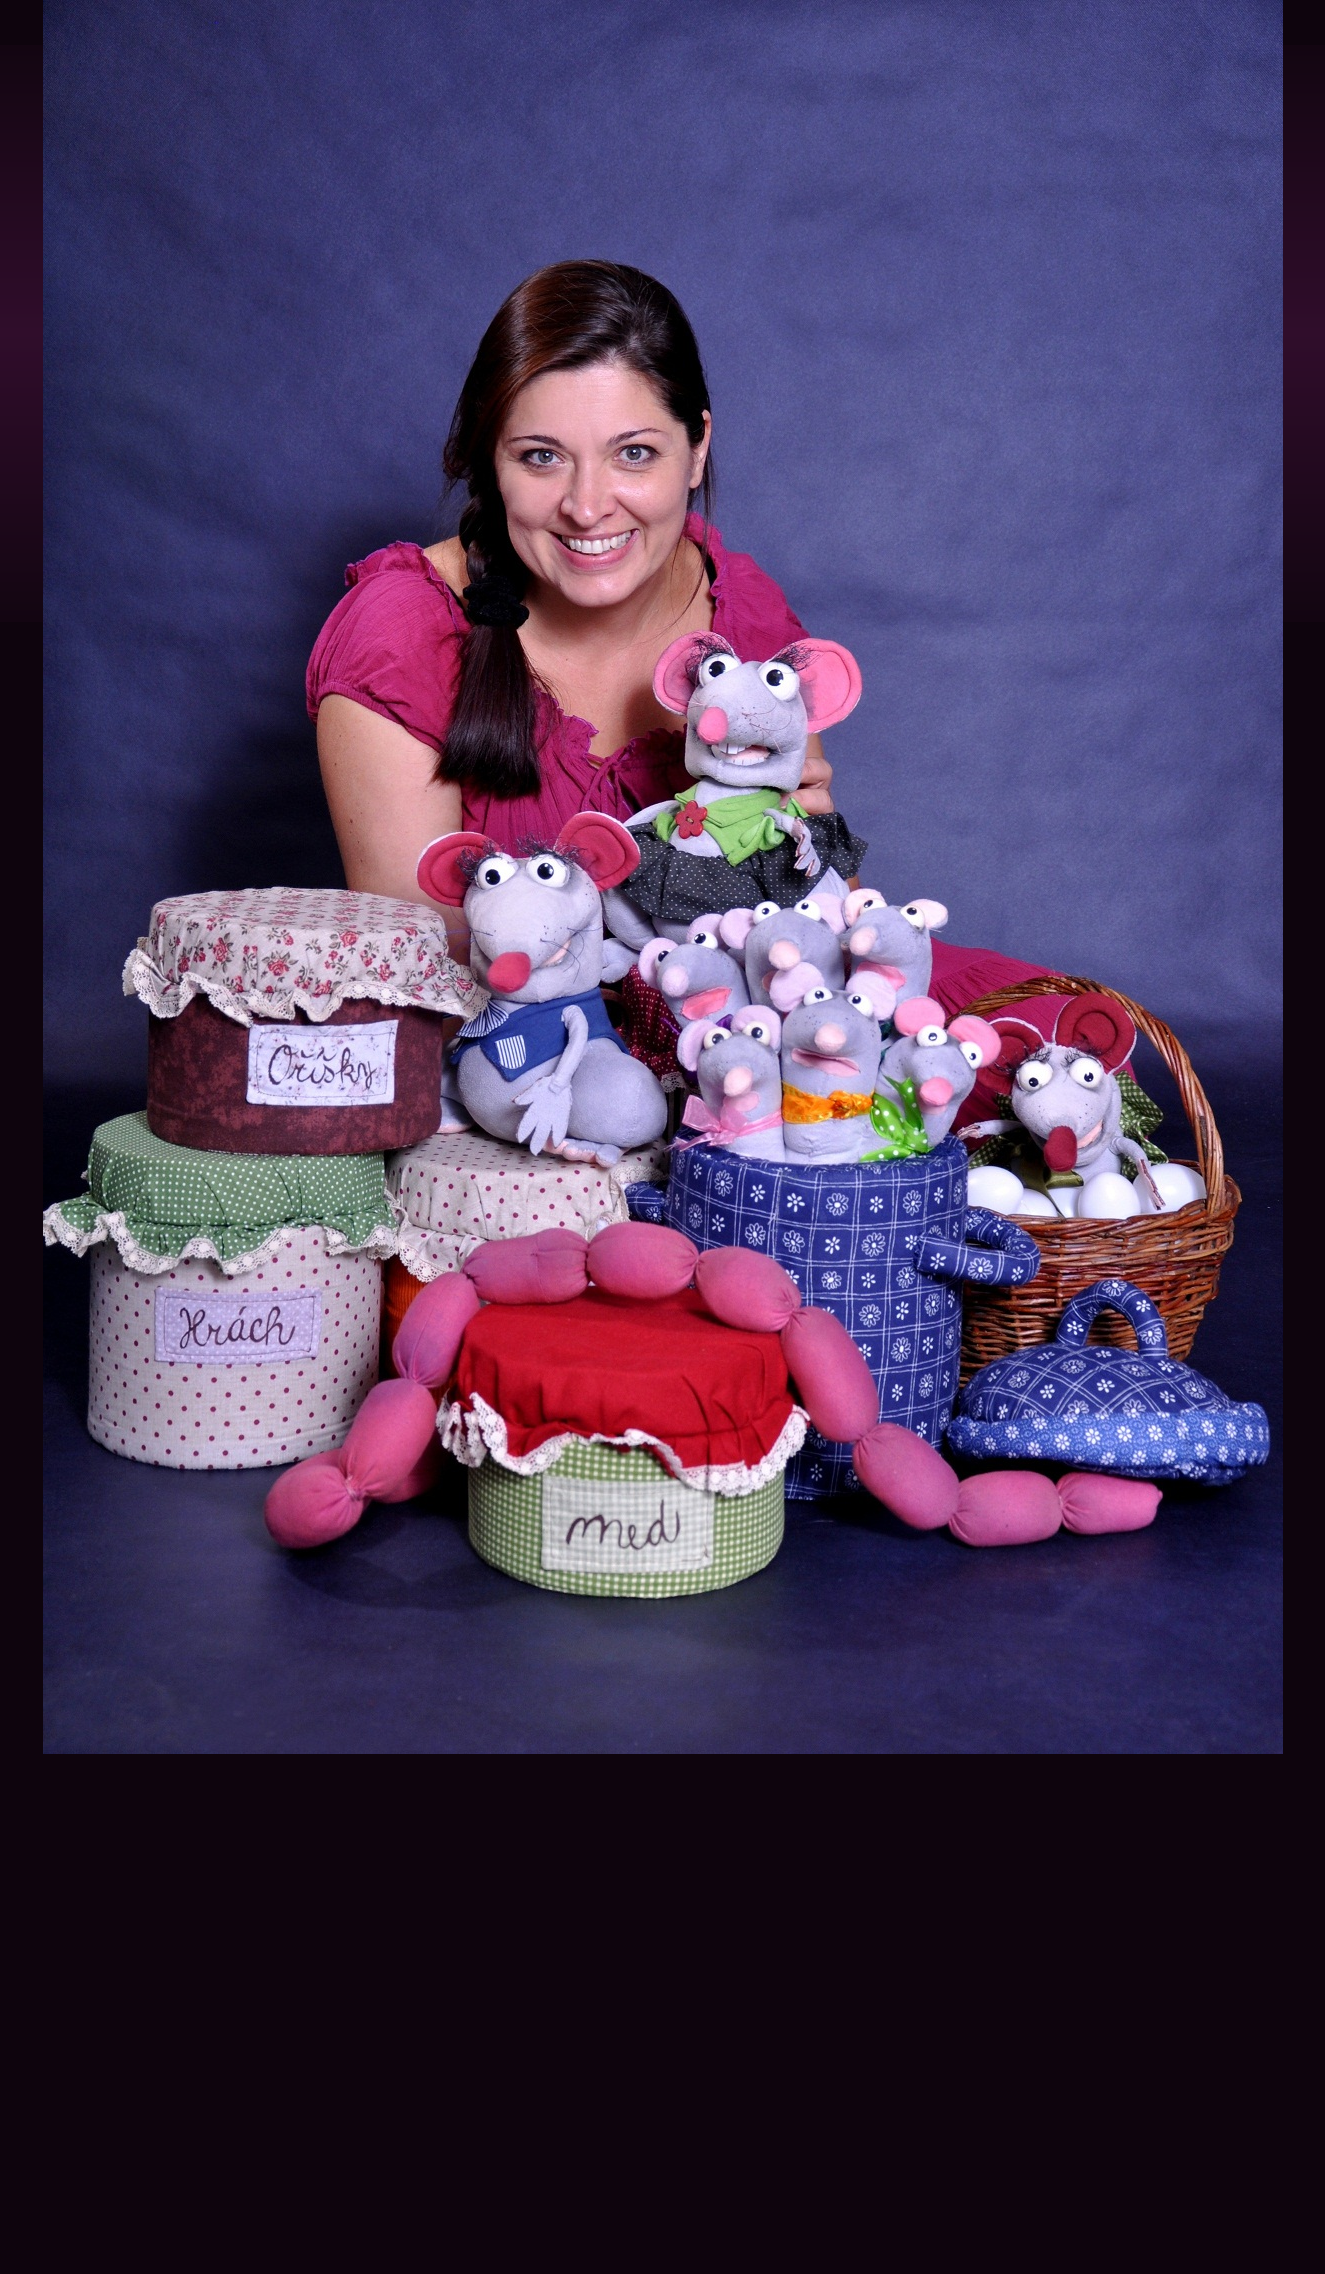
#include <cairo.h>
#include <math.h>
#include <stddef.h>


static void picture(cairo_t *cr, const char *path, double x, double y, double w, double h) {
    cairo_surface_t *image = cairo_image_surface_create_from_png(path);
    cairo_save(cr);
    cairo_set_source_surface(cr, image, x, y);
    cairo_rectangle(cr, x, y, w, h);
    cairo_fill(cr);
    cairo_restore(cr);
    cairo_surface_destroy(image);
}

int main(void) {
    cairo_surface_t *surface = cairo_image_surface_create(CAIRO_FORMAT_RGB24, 1325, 2274);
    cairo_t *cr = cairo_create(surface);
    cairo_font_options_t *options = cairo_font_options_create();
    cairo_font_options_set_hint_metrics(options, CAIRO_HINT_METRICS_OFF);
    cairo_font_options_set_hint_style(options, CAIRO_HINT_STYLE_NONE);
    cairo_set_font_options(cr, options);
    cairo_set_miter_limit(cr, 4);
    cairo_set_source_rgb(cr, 0.055, 0.016, 0.051);
    cairo_paint(cr);
    picture(cr, "img1.png", 0, 45, 1325, 577);
    picture(cr, "img2.png", 43, 0, 1240, 1754);
    cairo_surface_write_to_png(surface, "page.png");
    cairo_font_options_destroy(options);
    cairo_destroy(cr);
    cairo_surface_destroy(surface);
    return 0;
}
